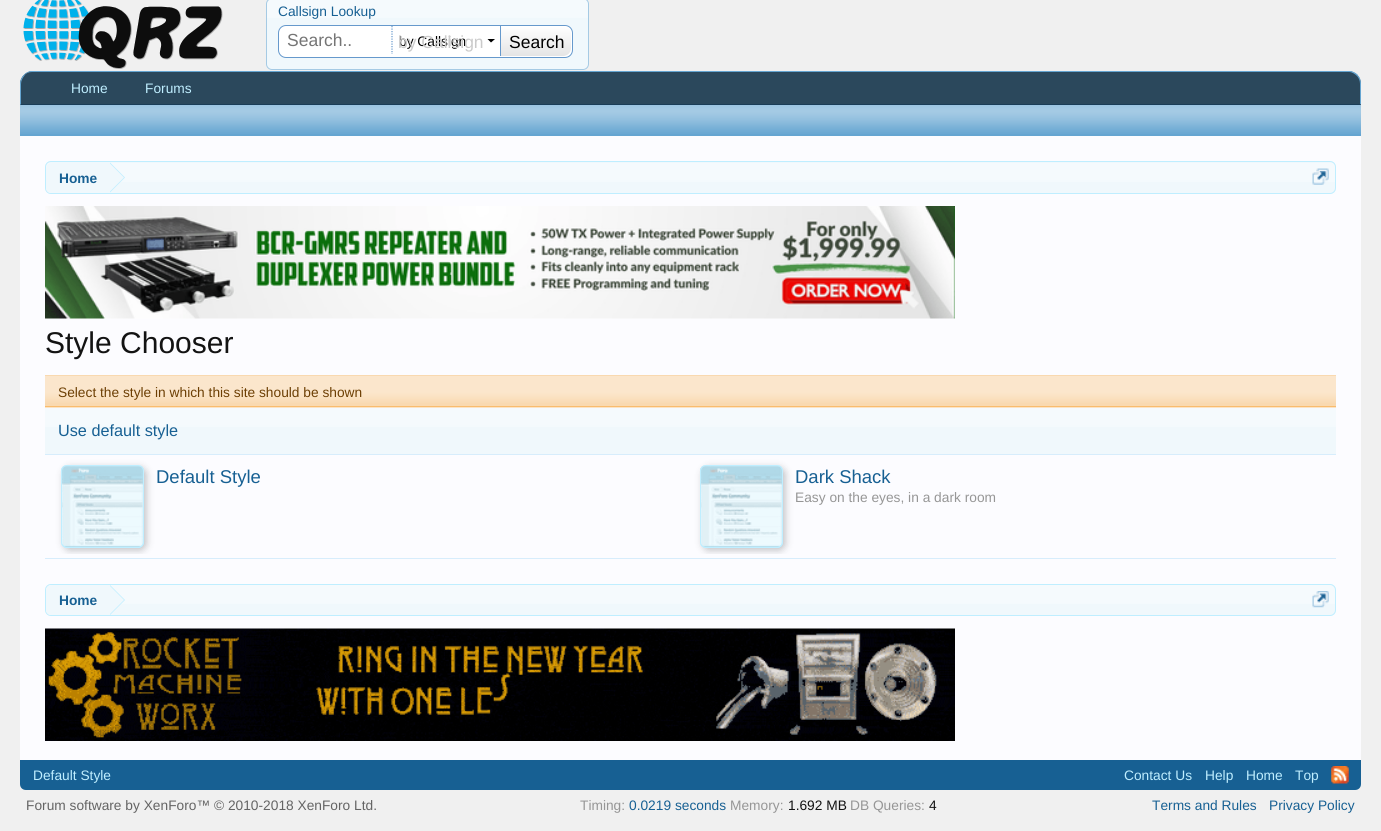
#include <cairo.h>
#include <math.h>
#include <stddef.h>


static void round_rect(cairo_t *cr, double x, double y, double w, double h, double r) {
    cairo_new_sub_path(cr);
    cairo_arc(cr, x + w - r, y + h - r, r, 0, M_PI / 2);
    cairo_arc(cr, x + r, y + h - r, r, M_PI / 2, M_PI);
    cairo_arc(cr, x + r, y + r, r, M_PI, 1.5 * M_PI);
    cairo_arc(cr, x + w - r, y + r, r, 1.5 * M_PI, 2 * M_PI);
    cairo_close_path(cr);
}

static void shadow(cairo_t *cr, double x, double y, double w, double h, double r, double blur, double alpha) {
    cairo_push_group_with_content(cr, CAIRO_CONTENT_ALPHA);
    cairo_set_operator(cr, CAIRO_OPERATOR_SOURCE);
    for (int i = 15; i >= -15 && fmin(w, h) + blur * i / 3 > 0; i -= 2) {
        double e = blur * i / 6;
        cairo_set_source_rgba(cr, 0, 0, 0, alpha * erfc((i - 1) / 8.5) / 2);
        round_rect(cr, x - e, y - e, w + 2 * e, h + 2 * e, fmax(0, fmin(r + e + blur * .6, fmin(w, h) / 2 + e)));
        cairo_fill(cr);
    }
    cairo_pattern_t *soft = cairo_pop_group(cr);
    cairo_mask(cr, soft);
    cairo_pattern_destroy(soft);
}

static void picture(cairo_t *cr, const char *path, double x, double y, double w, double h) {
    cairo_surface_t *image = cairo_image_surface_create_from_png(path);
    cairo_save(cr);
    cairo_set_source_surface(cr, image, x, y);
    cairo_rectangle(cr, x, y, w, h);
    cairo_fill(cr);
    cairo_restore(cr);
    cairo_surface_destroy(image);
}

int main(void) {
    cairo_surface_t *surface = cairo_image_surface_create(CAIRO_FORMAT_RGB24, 1381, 831);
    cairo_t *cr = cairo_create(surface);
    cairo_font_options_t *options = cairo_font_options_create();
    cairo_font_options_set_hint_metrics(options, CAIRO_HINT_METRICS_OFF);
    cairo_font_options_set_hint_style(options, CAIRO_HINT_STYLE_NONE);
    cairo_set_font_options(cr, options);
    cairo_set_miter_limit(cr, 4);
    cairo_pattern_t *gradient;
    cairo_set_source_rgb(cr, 0.941, 0.941, 0.941);
    cairo_paint(cr);
    picture(cr, "img1.png", 23, 0, 200, 69);
    cairo_set_source_rgb(cr, 0.941, 0.969, 0.988);
    round_rect(cr, 266, -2, 323, 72, 6);
    cairo_fill(cr);
    picture(cr, "img2.png", 267, 0, 321, 18);
    round_rect(cr, 266.5, -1.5, 322, 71, 5.5);
    cairo_set_source_rgb(cr, 0.647, 0.792, 0.894);
    cairo_set_line_width(cr, 1);
    cairo_stroke(cr);
    cairo_select_font_face(cr, "Liberation Sans", CAIRO_FONT_SLANT_NORMAL, CAIRO_FONT_WEIGHT_NORMAL);
    cairo_set_font_size(cr, 13.75);
    cairo_set_source_rgb(cr, 0.09, 0.376, 0.576);
    cairo_move_to(cr, 278, 16);
    cairo_show_text(cr, "Callsign Lookup");
    cairo_set_source_rgb(cr, 1, 1, 1);
    round_rect(cr, 278.5, 25.5, 294, 32, 7.5);
    cairo_fill_preserve(cr);
    cairo_set_source_rgb(cr, 0.4, 0.6, 0.8);
    cairo_stroke(cr);
    cairo_new_path(cr);
    cairo_move_to(cr, 392, 26);
    cairo_line_to(cr, 392, 54);
    cairo_set_line_width(cr, 1.2);
    cairo_set_dash(cr, (double[]){1.25, 1.25}, 2, 0);
    cairo_stroke(cr);
    cairo_set_font_size(cr, 17.5);
    cairo_set_source_rgb(cr, 0.459, 0.459, 0.459);
    cairo_move_to(cr, 287, 46);
    cairo_show_text(cr, "Search..");
    cairo_set_font_size(cr, 13.75);
    cairo_set_source_rgb(cr, 0, 0, 0);
    cairo_move_to(cr, 399, 46);
    cairo_show_text(cr, "by Callsign");
    cairo_set_font_size(cr, 17.5);
    cairo_set_source_rgb(cr, 0.792, 0.792, 0.792);
    cairo_move_to(cr, 398, 48);
    cairo_show_text(cr, "by Callsign");
    cairo_set_source_rgb(cr, 0.4, 0.6, 0.8);
    cairo_rectangle(cr, 500, 26, 1, 30);
    cairo_fill(cr);
    cairo_set_source_rgb(cr, 0, 0, 0);
    cairo_new_path(cr);
    cairo_move_to(cr, 487.5, 39);
    cairo_line_to(cr, 495, 39);
    cairo_line_to(cr, 491, 42.5);
    cairo_close_path(cr);
    cairo_fill(cr);
    gradient = cairo_pattern_create_linear(536, 26, 536, 56);
    cairo_pattern_add_color_stop_rgba(gradient, 0, 1, 1, 1, 1);
    cairo_pattern_add_color_stop_rgba(gradient, 1, 0.898, 0.898, 0.898, 1);
    cairo_set_source(cr, gradient);
    cairo_pattern_destroy(gradient);
    cairo_new_path(cr);
    cairo_move_to(cr, 501, 26);
    cairo_line_to(cr, 563, 26);
    cairo_curve_to(cr, 567.5, 26, 571, 29.5, 571, 34);
    cairo_line_to(cr, 571, 48);
    cairo_curve_to(cr, 571, 52.5, 567.5, 56, 563, 56);
    cairo_line_to(cr, 501, 56);
    cairo_close_path(cr);
    cairo_fill(cr);
    cairo_set_source_rgb(cr, 0, 0, 0);
    cairo_move_to(cr, 509, 48);
    cairo_show_text(cr, "Search");
    cairo_set_source_rgb(cr, 0.169, 0.282, 0.361);
    cairo_new_path(cr);
    cairo_move_to(cr, 33, 71);
    cairo_line_to(cr, 1348, 71);
    cairo_curve_to(cr, 1355, 71, 1361, 77, 1361, 84);
    cairo_line_to(cr, 1361, 105);
    cairo_line_to(cr, 20, 105);
    cairo_line_to(cr, 20, 84);
    cairo_curve_to(cr, 20, 77, 26, 71, 33, 71);
    cairo_close_path(cr);
    cairo_fill(cr);
    cairo_set_source_rgb(cr, 0.396, 0.647, 0.82);
    cairo_new_path(cr);
    cairo_move_to(cr, 32, 72);
    cairo_curve_to(cr, 29, 72, 26, 73, 24, 76);
    cairo_line_to(cr, 24, 75);
    cairo_curve_to(cr, 25, 73, 28, 72, 30, 71);
    cairo_line_to(cr, 1351, 71);
    cairo_curve_to(cr, 1354, 72, 1356, 73, 1358, 75);
    cairo_line_to(cr, 1357, 76);
    cairo_curve_to(cr, 1355, 74, 1352, 72, 1349, 72);
    cairo_close_path(cr);
    cairo_fill(cr);
    cairo_new_path(cr);
    cairo_move_to(cr, 1357.5, 75);
    cairo_curve_to(cr, 1360, 77, 1361, 80.5, 1361, 84);
    cairo_line_to(cr, 1361, 105);
    cairo_line_to(cr, 1360, 104);
    cairo_line_to(cr, 1360, 84);
    cairo_curve_to(cr, 1360, 81, 1359, 78, 1357, 76);
    cairo_close_path(cr);
    cairo_fill(cr);
    cairo_set_source_rgb(cr, 0.012, 0.165, 0.275);
    cairo_new_path(cr);
    cairo_move_to(cr, 1361, 105);
    cairo_line_to(cr, 1360, 104);
    cairo_line_to(cr, 21, 104);
    cairo_line_to(cr, 20, 105);
    cairo_close_path(cr);
    cairo_fill(cr);
    cairo_set_source_rgb(cr, 0.396, 0.647, 0.82);
    cairo_new_path(cr);
    cairo_move_to(cr, 20, 105);
    cairo_line_to(cr, 21, 104);
    cairo_line_to(cr, 21, 84);
    cairo_curve_to(cr, 21, 81, 22.5, 78, 24.5, 75.5);
    cairo_line_to(cr, 23.5, 75);
    cairo_curve_to(cr, 21.5, 77.5, 20, 80.5, 20, 84);
    cairo_close_path(cr);
    cairo_fill(cr);
    cairo_set_font_size(cr, 13.75);
    cairo_set_source_rgb(cr, 0.749, 0.933, 1);
    cairo_move_to(cr, 71, 93);
    cairo_show_text(cr, "Home");
    cairo_move_to(cr, 145, 93);
    cairo_show_text(cr, "Forums");
    cairo_set_source_rgb(cr, 0.396, 0.647, 0.82);
    cairo_rectangle(cr, 20, 105, 1341, 31);
    cairo_fill(cr);
    picture(cr, "img3.png", 20, 104, 1341, 30);
    cairo_set_source_rgb(cr, 0.988, 0.988, 1);
    cairo_rectangle(cr, 20, 136, 1341, 624);
    cairo_fill(cr);
    cairo_set_source_rgb(cr, 0.941, 0.969, 0.988);
    round_rect(cr, 45, 161, 1291, 33, 6);
    cairo_fill(cr);
    picture(cr, "img4.png", 45, 163, 1291, 19);
    round_rect(cr, 45.5, 161.5, 1290, 32, 5.5);
    cairo_set_source_rgb(cr, 0.749, 0.933, 1);
    cairo_set_line_width(cr, 1);
    cairo_set_dash(cr, NULL, 0, 0);
    cairo_stroke(cr);
    cairo_save(cr);
    round_rect(cr, 46, 163, 1289, 30, 5);
    cairo_clip(cr);
    cairo_set_source_rgb(cr, 0.941, 0.969, 0.988);
    cairo_new_path(cr);
    cairo_move_to(cr, 52, 163);
    cairo_line_to(cr, 110, 163);
    cairo_line_to(cr, 110, 194);
    cairo_line_to(cr, 52, 194);
    cairo_curve_to(cr, 48.5, 194, 46, 191.5, 46, 188);
    cairo_line_to(cr, 46, 169);
    cairo_curve_to(cr, 46, 165.5, 48.5, 163, 52, 163);
    cairo_close_path(cr);
    cairo_fill(cr);
    cairo_restore(cr);
    cairo_select_font_face(cr, "Liberation Sans", CAIRO_FONT_SLANT_NORMAL, CAIRO_FONT_WEIGHT_BOLD);
    cairo_set_source_rgb(cr, 0.09, 0.376, 0.576);
    cairo_move_to(cr, 59, 183);
    cairo_show_text(cr, "Home");
    cairo_set_source_rgb(cr, 0.749, 0.933, 1);
    cairo_new_path(cr);
    cairo_move_to(cr, 110, 192.5);
    cairo_line_to(cr, 110, 162.5);
    cairo_line_to(cr, 125, 177.5);
    cairo_close_path(cr);
    cairo_fill(cr);
    cairo_set_source_rgb(cr, 0.941, 0.969, 0.988);
    cairo_new_path(cr);
    cairo_move_to(cr, 109, 192.5);
    cairo_line_to(cr, 109, 162.5);
    cairo_line_to(cr, 124, 177.5);
    cairo_close_path(cr);
    cairo_fill(cr);
    picture(cr, "img5.png", 1312, 168, 17, 17);
    picture(cr, "img6.png", 45, 206, 910, 113);
    cairo_select_font_face(cr, "Liberation Sans", CAIRO_FONT_SLANT_NORMAL, CAIRO_FONT_WEIGHT_NORMAL);
    cairo_set_font_size(cr, 30);
    cairo_set_source_rgb(cr, 0.078, 0.078, 0.078);
    cairo_move_to(cr, 45, 353);
    cairo_show_text(cr, "Style Chooser");
    cairo_set_source_rgb(cr, 0.976, 0.851, 0.69);
    cairo_rectangle(cr, 45, 375, 1291, 33);
    cairo_fill(cr);
    picture(cr, "img7.png", 45, 376, 1291, 27);
    cairo_set_source_rgb(cr, 0.976, 0.737, 0.427);
    cairo_rectangle(cr, 45, 406, 1291, 1);
    cairo_fill(cr);
    cairo_set_font_size(cr, 13.75);
    cairo_set_source_rgb(cr, 0.427, 0.247, 0.012);
    cairo_move_to(cr, 58, 397);
    cairo_show_text(cr, "Select the style in which this site should be shown");
    cairo_set_source_rgb(cr, 0.941, 0.969, 0.988);
    cairo_rectangle(cr, 45, 408, 1291, 46);
    cairo_fill(cr);
    picture(cr, "img8.png", 45, 407, 1291, 20);
    cairo_set_source_rgb(cr, 0.843, 0.929, 0.988);
    cairo_rectangle(cr, 45, 454, 1291, 1);
    cairo_fill(cr);
    cairo_set_font_size(cr, 16.25);
    cairo_set_source_rgb(cr, 0.09, 0.376, 0.576);
    cairo_move_to(cr, 58, 436);
    cairo_show_text(cr, "Use default style");
    cairo_set_source_rgb(cr, 0.843, 0.929, 0.988);
    cairo_rectangle(cr, 45, 558, 1291, 1);
    cairo_fill(cr);
    cairo_save(cr);
    round_rect(cr, 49, 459, 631, 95, 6);
    cairo_clip(cr);
    cairo_set_source_rgb(cr, 0, 0, 0);
    shadow(cr, 64, 468, 82, 82, 6, 4, 0.25);
    cairo_restore(cr);
    cairo_set_source_rgb(cr, 0.749, 0.933, 1);
    round_rect(cr, 61, 465, 83, 83, 6);
    cairo_fill(cr);
    picture(cr, "img9.png", 61, 465, 83, 82);
    round_rect(cr, 61.5, 465.5, 82, 82, 5.5);
    cairo_stroke(cr);
    cairo_set_font_size(cr, 18.5);
    cairo_set_source_rgb(cr, 0.09, 0.376, 0.576);
    cairo_move_to(cr, 156, 483);
    cairo_show_text(cr, "Default Style");
    cairo_save(cr);
    round_rect(cr, 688, 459, 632, 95, 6);
    cairo_clip(cr);
    cairo_set_source_rgb(cr, 0, 0, 0);
    shadow(cr, 703, 468, 82, 82, 6, 4, 0.25);
    cairo_restore(cr);
    cairo_set_source_rgb(cr, 0.749, 0.933, 1);
    round_rect(cr, 700, 465, 83, 83, 6);
    cairo_fill(cr);
    picture(cr, "img10.png", 700, 465, 83, 82);
    round_rect(cr, 700.5, 465.5, 82, 82, 5.5);
    cairo_stroke(cr);
    cairo_set_source_rgb(cr, 0.09, 0.376, 0.576);
    cairo_move_to(cr, 795, 483);
    cairo_show_text(cr, "Dark Shack");
    cairo_set_font_size(cr, 13.75);
    cairo_set_source_rgb(cr, 0.588, 0.588, 0.588);
    cairo_move_to(cr, 795, 502);
    cairo_show_text(cr, "Easy on the eyes, in a dark room");
    cairo_set_source_rgb(cr, 0.941, 0.969, 0.988);
    round_rect(cr, 45, 584, 1291, 32, 6);
    cairo_fill(cr);
    picture(cr, "img11.png", 45, 585, 1291, 19);
    round_rect(cr, 45.5, 584.5, 1290, 31, 5.5);
    cairo_set_source_rgb(cr, 0.749, 0.933, 1);
    cairo_stroke(cr);
    cairo_save(cr);
    round_rect(cr, 46, 585, 1289, 30, 5);
    cairo_clip(cr);
    cairo_set_source_rgb(cr, 0.941, 0.969, 0.988);
    cairo_new_path(cr);
    cairo_move_to(cr, 52, 585);
    cairo_line_to(cr, 110, 585);
    cairo_line_to(cr, 110, 616);
    cairo_line_to(cr, 52, 616);
    cairo_curve_to(cr, 48.5, 616, 46, 613.5, 46, 610);
    cairo_line_to(cr, 46, 591);
    cairo_curve_to(cr, 46, 587.5, 48.5, 585, 52, 585);
    cairo_close_path(cr);
    cairo_fill(cr);
    cairo_restore(cr);
    cairo_select_font_face(cr, "Liberation Sans", CAIRO_FONT_SLANT_NORMAL, CAIRO_FONT_WEIGHT_BOLD);
    cairo_set_source_rgb(cr, 0.09, 0.376, 0.576);
    cairo_move_to(cr, 59, 605);
    cairo_show_text(cr, "Home");
    cairo_set_source_rgb(cr, 0.749, 0.933, 1);
    cairo_new_path(cr);
    cairo_move_to(cr, 110, 615);
    cairo_line_to(cr, 110, 585);
    cairo_line_to(cr, 125, 600);
    cairo_close_path(cr);
    cairo_fill(cr);
    cairo_set_source_rgb(cr, 0.941, 0.969, 0.988);
    cairo_new_path(cr);
    cairo_move_to(cr, 109, 615);
    cairo_line_to(cr, 109, 585);
    cairo_line_to(cr, 124, 600);
    cairo_close_path(cr);
    cairo_fill(cr);
    picture(cr, "img12.png", 1312, 591, 17, 17);
    picture(cr, "img13.png", 45, 628, 910, 113);
    cairo_set_source_rgb(cr, 0.09, 0.376, 0.576);
    cairo_new_path(cr);
    cairo_move_to(cr, 20, 760);
    cairo_line_to(cr, 1361, 760);
    cairo_line_to(cr, 1361, 784);
    cairo_curve_to(cr, 1361, 787.5, 1358.5, 790, 1355, 790);
    cairo_line_to(cr, 26, 790);
    cairo_curve_to(cr, 22.5, 790, 20, 787.5, 20, 784);
    cairo_close_path(cr);
    cairo_fill(cr);
    cairo_select_font_face(cr, "Liberation Sans", CAIRO_FONT_SLANT_NORMAL, CAIRO_FONT_WEIGHT_NORMAL);
    cairo_set_source_rgb(cr, 0.749, 0.933, 1);
    cairo_move_to(cr, 33, 780);
    cairo_show_text(cr, "Default Style");
    cairo_move_to(cr, 1124, 780);
    cairo_show_text(cr, "Contact Us");
    cairo_move_to(cr, 1205, 780);
    cairo_show_text(cr, "Help");
    cairo_move_to(cr, 1246, 780);
    cairo_show_text(cr, "Home");
    cairo_move_to(cr, 1295, 780);
    cairo_show_text(cr, "Top");
    picture(cr, "img14.png", 1331, 766, 18, 18);
    cairo_set_source_rgb(cr, 0.392, 0.392, 0.392);
    cairo_move_to(cr, 26, 810);
    cairo_show_text(cr, "Forum software by XenForo™ © 2010-2018 XenForo Ltd.");
    cairo_set_source_rgb(cr, 0.588, 0.588, 0.588);
    cairo_move_to(cr, 580, 810);
    cairo_show_text(cr, "Timing:");
    cairo_set_source_rgb(cr, 0.09, 0.376, 0.576);
    cairo_move_to(cr, 629, 810);
    cairo_show_text(cr, "0.0219 seconds");
    cairo_set_source_rgb(cr, 0.588, 0.588, 0.588);
    cairo_move_to(cr, 730, 810);
    cairo_show_text(cr, "Memory:");
    cairo_set_source_rgb(cr, 0.078, 0.078, 0.078);
    cairo_move_to(cr, 788, 810);
    cairo_show_text(cr, "1.692 MB");
    cairo_set_source_rgb(cr, 0.588, 0.588, 0.588);
    cairo_move_to(cr, 850, 810);
    cairo_show_text(cr, "DB Queries:");
    cairo_set_source_rgb(cr, 0.078, 0.078, 0.078);
    cairo_move_to(cr, 929, 810);
    cairo_show_text(cr, "4");
    cairo_set_source_rgb(cr, 0.09, 0.376, 0.576);
    cairo_move_to(cr, 1152, 810);
    cairo_show_text(cr, "Terms and Rules");
    cairo_move_to(cr, 1269, 810);
    cairo_show_text(cr, "Privacy Policy");
    cairo_surface_write_to_png(surface, "page.png");
    cairo_font_options_destroy(options);
    cairo_destroy(cr);
    cairo_surface_destroy(surface);
    return 0;
}
